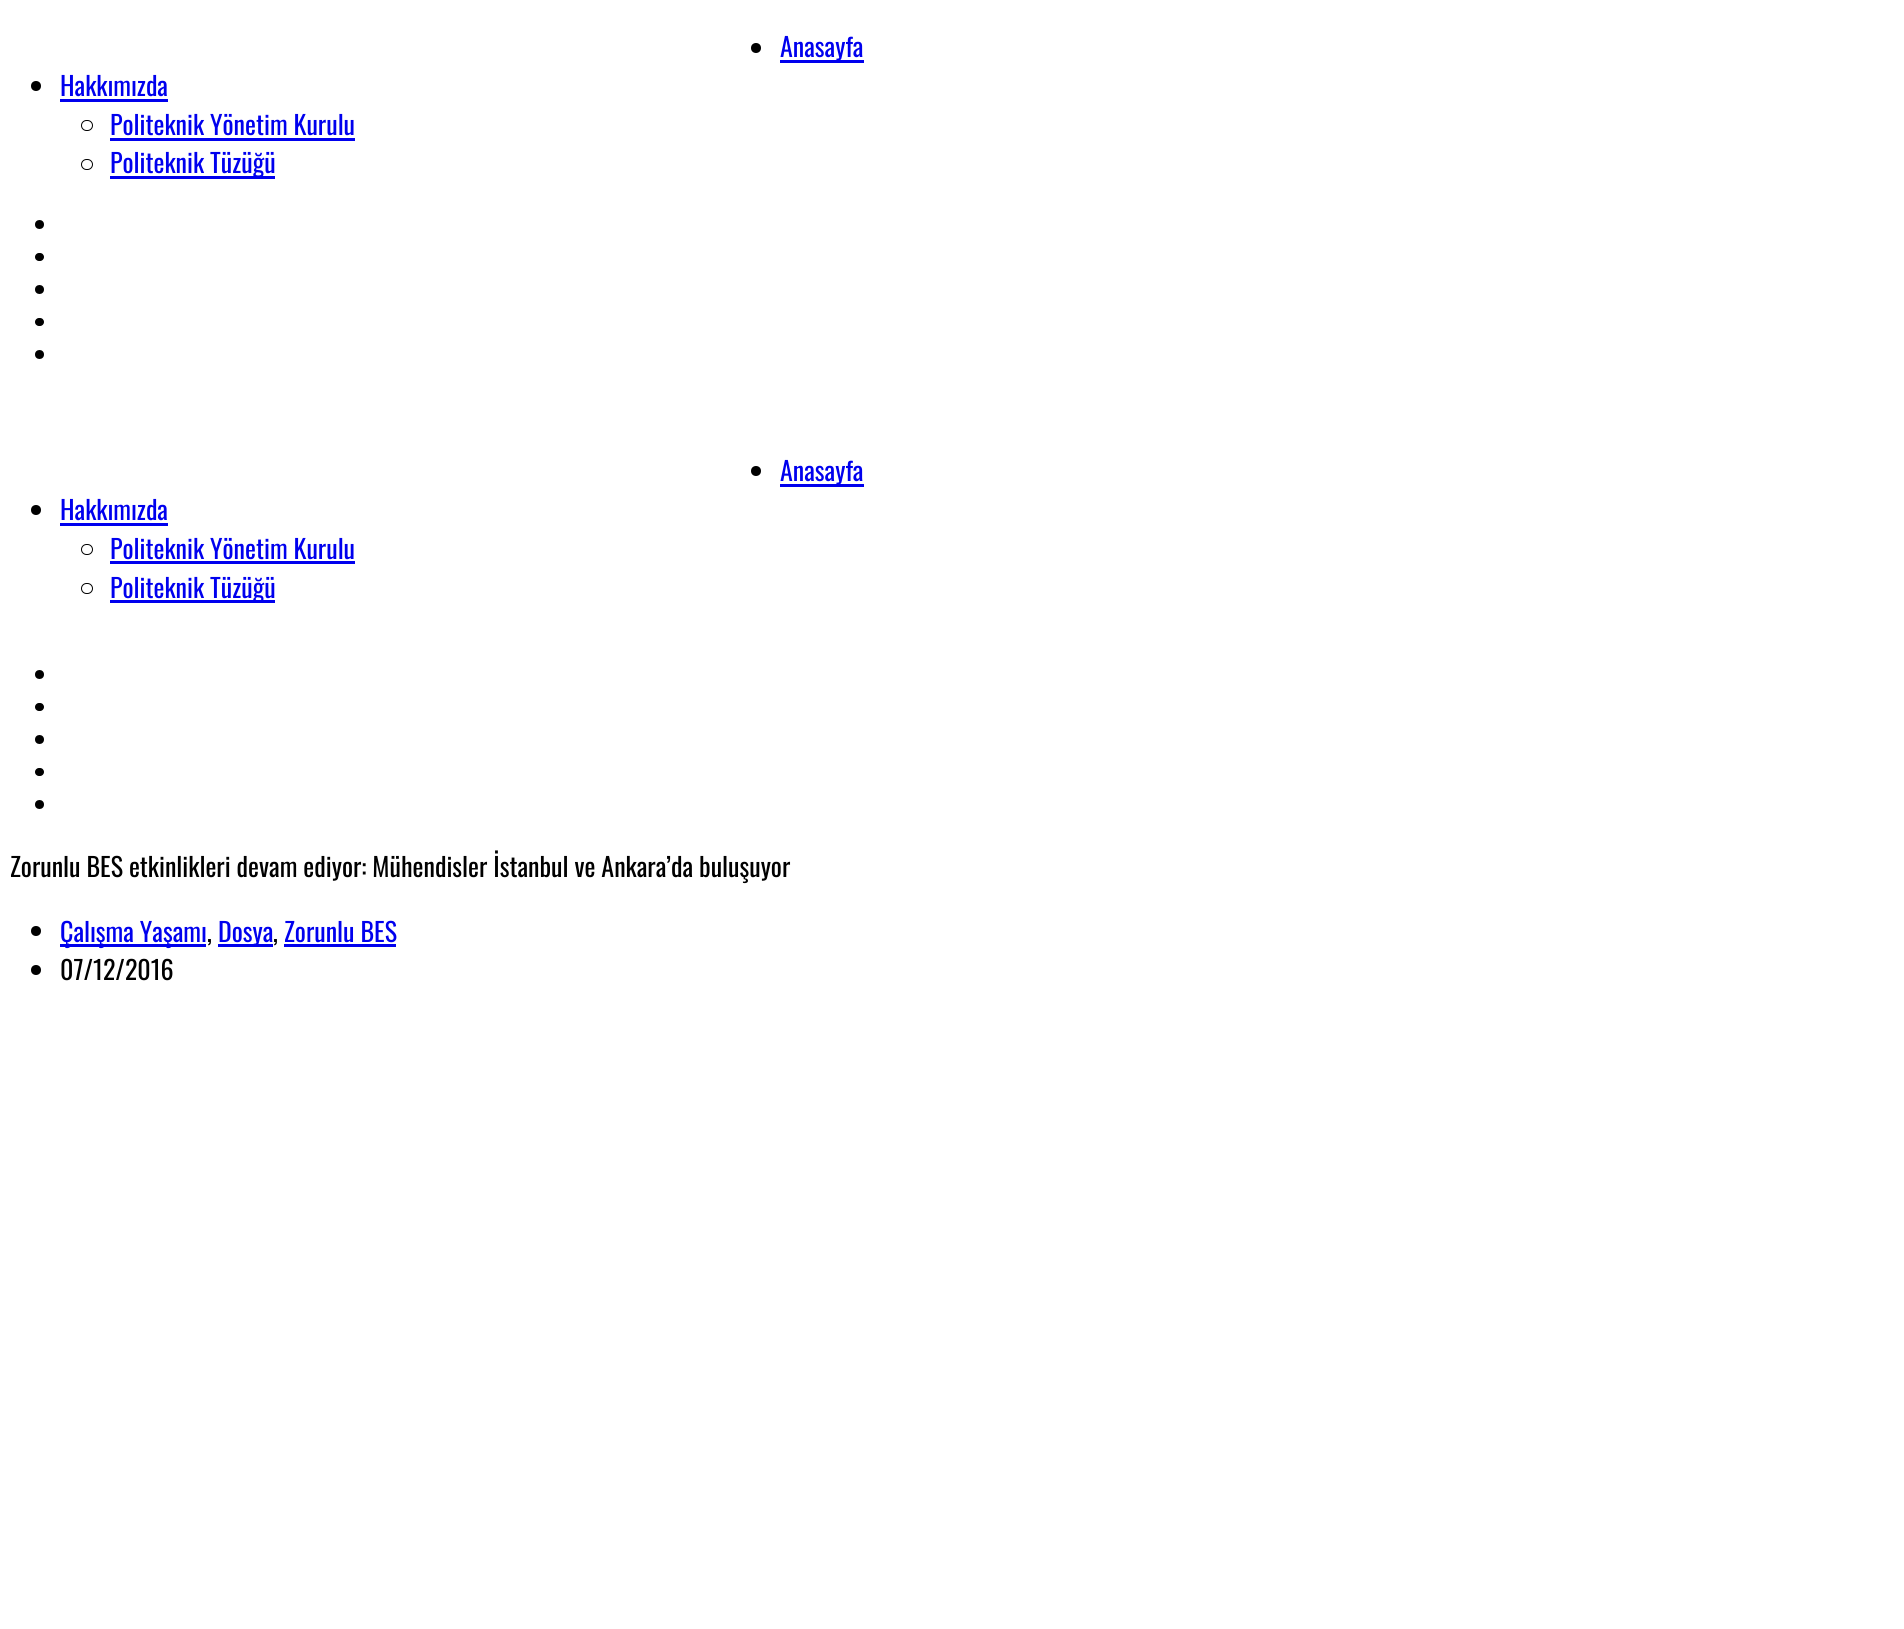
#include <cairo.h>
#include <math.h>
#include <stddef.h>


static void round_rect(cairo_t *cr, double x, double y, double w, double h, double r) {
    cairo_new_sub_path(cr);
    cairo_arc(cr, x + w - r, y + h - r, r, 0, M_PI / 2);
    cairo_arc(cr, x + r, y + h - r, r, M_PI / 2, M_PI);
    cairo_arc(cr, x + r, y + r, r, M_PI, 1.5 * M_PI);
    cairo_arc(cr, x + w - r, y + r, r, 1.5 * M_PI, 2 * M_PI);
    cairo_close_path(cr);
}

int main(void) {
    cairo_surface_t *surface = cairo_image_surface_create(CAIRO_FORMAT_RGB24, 1904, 1629);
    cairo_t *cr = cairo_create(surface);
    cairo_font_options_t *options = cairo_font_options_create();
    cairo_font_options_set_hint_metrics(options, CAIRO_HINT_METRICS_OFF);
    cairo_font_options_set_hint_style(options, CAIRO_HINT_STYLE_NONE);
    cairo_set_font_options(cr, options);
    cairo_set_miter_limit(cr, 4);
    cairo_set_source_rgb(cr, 1, 1, 1);
    cairo_paint(cr);
    cairo_set_source_rgb(cr, 0, 0, 0);
    cairo_arc(cr, 756, 48, 5, 0, 2 * M_PI);
    cairo_fill(cr);
    cairo_set_source_rgb(cr, 0, 0, 0.933);
    cairo_rectangle(cr, 780, 60, 84, 3);
    cairo_fill(cr);
    cairo_select_font_face(cr, "Oswald", CAIRO_FONT_SLANT_NORMAL, CAIRO_FONT_WEIGHT_NORMAL);
    cairo_set_font_size(cr, 26);
    cairo_move_to(cr, 780, 57);
    cairo_show_text(cr, "Anasayfa");
    cairo_set_source_rgb(cr, 0, 0, 0);
    cairo_new_path(cr);
    cairo_arc(cr, 36, 86, 5, 0, 2 * M_PI);
    cairo_fill(cr);
    cairo_set_source_rgb(cr, 0, 0, 0.933);
    cairo_move_to(cr, 60, 96);
    cairo_show_text(cr, "Hakkımızda");
    cairo_rectangle(cr, 60, 99, 108, 3);
    cairo_fill(cr);
    round_rect(cr, 81.5, 120.5, 11, 10, 5);
    cairo_set_source_rgb(cr, 0, 0, 0);
    cairo_set_line_width(cr, 1);
    cairo_stroke(cr);
    cairo_set_source_rgb(cr, 0, 0, 0.933);
    cairo_move_to(cr, 110, 135);
    cairo_show_text(cr, "Politeknik Yönetim Kurulu");
    cairo_rectangle(cr, 110, 138, 245, 3);
    cairo_fill(cr);
    round_rect(cr, 81.5, 159.5, 11, 10, 5);
    cairo_set_source_rgb(cr, 0, 0, 0);
    cairo_stroke(cr);
    cairo_set_source_rgb(cr, 0, 0, 0.933);
    cairo_rectangle(cr, 110, 176, 165, 3);
    cairo_fill(cr);
    cairo_move_to(cr, 110, 173);
    cairo_show_text(cr, "Politeknik Tüzüğü");
    cairo_set_source_rgb(cr, 0, 0, 0);
    cairo_new_path(cr);
    cairo_arc(cr, 39.5, 224.5, 4.5, 0, 2 * M_PI);
    cairo_fill(cr);
    round_rect(cr, 35, 253, 9, 8, 4);
    cairo_fill(cr);
    cairo_arc(cr, 39.5, 289.5, 4.5, 0, 2 * M_PI);
    cairo_fill(cr);
    round_rect(cr, 35, 318, 9, 8, 4);
    cairo_fill(cr);
    cairo_arc(cr, 39.5, 354.5, 4.5, 0, 2 * M_PI);
    cairo_fill(cr);
    cairo_arc(cr, 756, 471, 5, 0, 2 * M_PI);
    cairo_fill(cr);
    cairo_set_source_rgb(cr, 0, 0, 0.933);
    cairo_rectangle(cr, 780, 484, 84, 3);
    cairo_fill(cr);
    cairo_move_to(cr, 780, 481);
    cairo_show_text(cr, "Anasayfa");
    cairo_set_source_rgb(cr, 0, 0, 0);
    cairo_new_path(cr);
    cairo_arc(cr, 36, 510, 5, 0, 2 * M_PI);
    cairo_fill(cr);
    cairo_set_source_rgb(cr, 0, 0, 0.933);
    cairo_move_to(cr, 60, 520);
    cairo_show_text(cr, "Hakkımızda");
    cairo_rectangle(cr, 60, 523, 108, 3);
    cairo_fill(cr);
    round_rect(cr, 81.5, 544.5, 11, 10, 5);
    cairo_set_source_rgb(cr, 0, 0, 0);
    cairo_stroke(cr);
    cairo_set_source_rgb(cr, 0, 0, 0.933);
    cairo_move_to(cr, 110, 559);
    cairo_show_text(cr, "Politeknik Yönetim Kurulu");
    cairo_rectangle(cr, 110, 561, 245, 3);
    cairo_fill(cr);
    round_rect(cr, 81.5, 583.5, 11, 10, 5);
    cairo_set_source_rgb(cr, 0, 0, 0);
    cairo_stroke(cr);
    cairo_set_source_rgb(cr, 0, 0, 0.933);
    cairo_rectangle(cr, 110, 600, 165, 3);
    cairo_fill(cr);
    cairo_move_to(cr, 110, 598);
    cairo_show_text(cr, "Politeknik Tüzüğü");
    cairo_set_source_rgb(cr, 0, 0, 0);
    cairo_new_path(cr);
    cairo_arc(cr, 39.5, 674.5, 4.5, 0, 2 * M_PI);
    cairo_fill(cr);
    round_rect(cr, 35, 703, 9, 8, 4);
    cairo_fill(cr);
    cairo_arc(cr, 39.5, 739.5, 4.5, 0, 2 * M_PI);
    cairo_fill(cr);
    round_rect(cr, 35, 768, 9, 8, 4);
    cairo_fill(cr);
    cairo_arc(cr, 39.5, 804.5, 4.5, 0, 2 * M_PI);
    cairo_fill(cr);
    cairo_move_to(cr, 10, 877);
    cairo_show_text(cr, "Zorunlu BES etkinlikleri devam ediyor: Mühendisler İstanbul ve Ankara’da buluşuyor");
    cairo_new_path(cr);
    cairo_arc(cr, 36, 931, 5, 0, 2 * M_PI);
    cairo_fill(cr);
    cairo_set_source_rgb(cr, 0, 0, 0.933);
    cairo_rectangle(cr, 60, 944, 146, 3);
    cairo_fill(cr);
    cairo_move_to(cr, 60, 942);
    cairo_show_text(cr, "Çalışma Yaşamı");
    cairo_rectangle(cr, 218, 944, 55, 3);
    cairo_fill(cr);
    cairo_move_to(cr, 218, 942);
    cairo_show_text(cr, "Dosya");
    cairo_move_to(cr, 284, 942);
    cairo_show_text(cr, "Zorunlu BES");
    cairo_rectangle(cr, 284, 944, 112, 3);
    cairo_fill(cr);
    cairo_set_source_rgb(cr, 0, 0, 0);
    cairo_move_to(cr, 207, 942);
    cairo_show_text(cr, ",");
    cairo_move_to(cr, 273, 942);
    cairo_show_text(cr, ",");
    cairo_new_path(cr);
    cairo_arc(cr, 36, 970, 5, 0, 2 * M_PI);
    cairo_fill(cr);
    cairo_move_to(cr, 60, 980);
    cairo_show_text(cr, "07/12/2016");
    cairo_surface_write_to_png(surface, "page.png");
    cairo_font_options_destroy(options);
    cairo_destroy(cr);
    cairo_surface_destroy(surface);
    return 0;
}
